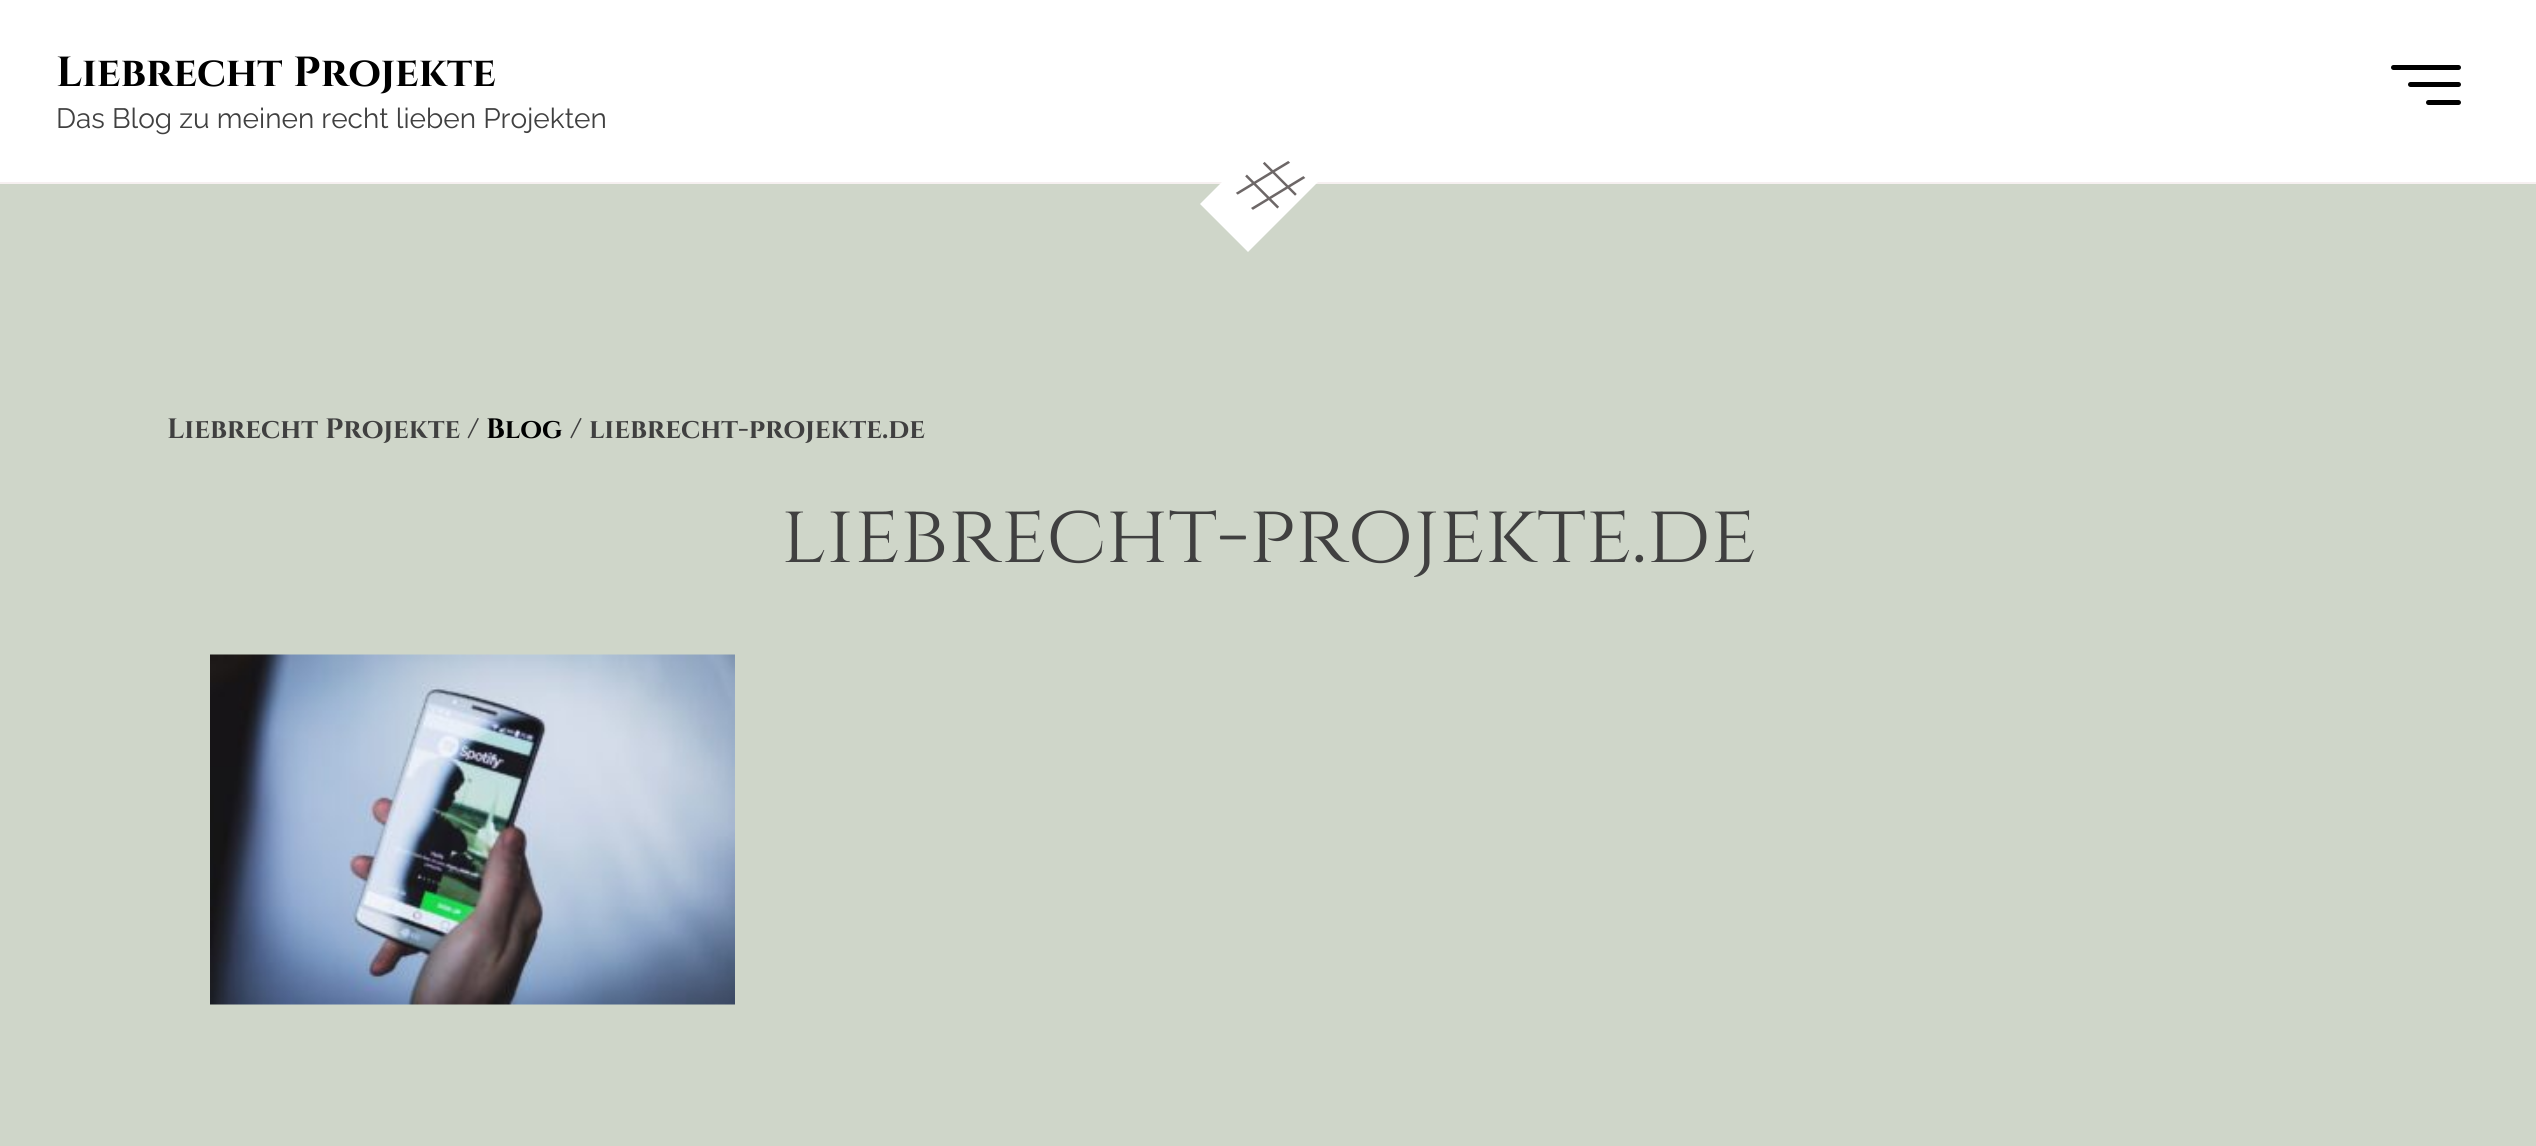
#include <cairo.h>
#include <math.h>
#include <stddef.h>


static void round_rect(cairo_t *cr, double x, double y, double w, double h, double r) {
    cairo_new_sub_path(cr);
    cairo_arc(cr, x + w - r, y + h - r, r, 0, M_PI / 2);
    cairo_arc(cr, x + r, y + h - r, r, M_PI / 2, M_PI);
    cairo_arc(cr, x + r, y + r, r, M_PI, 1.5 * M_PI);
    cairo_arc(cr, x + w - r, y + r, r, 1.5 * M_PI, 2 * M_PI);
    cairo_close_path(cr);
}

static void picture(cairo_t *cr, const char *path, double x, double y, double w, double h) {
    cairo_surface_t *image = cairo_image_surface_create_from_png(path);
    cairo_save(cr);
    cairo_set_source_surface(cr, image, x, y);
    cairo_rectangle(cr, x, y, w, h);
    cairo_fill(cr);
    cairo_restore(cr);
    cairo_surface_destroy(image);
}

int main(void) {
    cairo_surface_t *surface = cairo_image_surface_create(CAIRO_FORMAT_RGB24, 2536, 1146);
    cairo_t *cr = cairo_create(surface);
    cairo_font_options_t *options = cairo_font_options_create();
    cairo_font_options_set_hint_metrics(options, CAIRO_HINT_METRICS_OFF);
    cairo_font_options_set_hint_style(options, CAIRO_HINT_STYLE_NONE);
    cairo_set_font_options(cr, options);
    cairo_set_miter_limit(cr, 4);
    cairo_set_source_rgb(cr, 0.812, 0.839, 0.788);
    cairo_paint(cr);
    cairo_set_source_rgb(cr, 1, 1, 1);
    cairo_rectangle(cr, 0, 0, 2536, 182);
    cairo_fill(cr);
    cairo_set_source_rgb(cr, 0.961, 0.941, 0.941);
    cairo_rectangle(cr, 0, 182, 2536, 2);
    cairo_fill(cr);
    cairo_select_font_face(cr, "Cinzel", CAIRO_FONT_SLANT_NORMAL, CAIRO_FONT_WEIGHT_BOLD);
    cairo_set_font_size(cr, 42);
    cairo_set_source_rgb(cr, 0, 0, 0);
    cairo_move_to(cr, 56, 86);
    cairo_show_text(cr, "Liebrecht Projekte");
    cairo_select_font_face(cr, "Raleway", CAIRO_FONT_SLANT_NORMAL, CAIRO_FONT_WEIGHT_NORMAL);
    cairo_set_font_size(cr, 28);
    cairo_set_source_rgb(cr, 0.251, 0.251, 0.251);
    cairo_move_to(cr, 56, 128);
    cairo_show_text(cr, "Das Blog zu meinen recht lieben Projekten");
    cairo_set_source_rgb(cr, 0, 0, 0);
    round_rect(cr, 2391, 65, 70, 5, 2.5);
    cairo_fill(cr);
    round_rect(cr, 2408, 82, 53, 5, 2.5);
    cairo_fill(cr);
    round_rect(cr, 2426, 100, 35, 5, 2.5);
    cairo_fill(cr);
    cairo_set_source_rgb(cr, 1, 1, 1);
    cairo_new_path(cr);
    cairo_move_to(cr, 1289, 115);
    cairo_line_to(cr, 1337, 163);
    cairo_line_to(cr, 1248, 252);
    cairo_line_to(cr, 1200, 204);
    cairo_close_path(cr);
    cairo_fill(cr);
    cairo_select_font_face(cr, "Raleway ExtraLight", CAIRO_FONT_SLANT_NORMAL, CAIRO_FONT_WEIGHT_NORMAL);
    cairo_set_font_size(cr, 84);
    cairo_set_source_rgb(cr, 0.427, 0.404, 0.404);
    cairo_save(cr);
    cairo_translate(cr, 1230, 187);
    cairo_rotate(cr, 45 * M_PI / 180);
    cairo_move_to(cr, 0, 0);
    cairo_show_text(cr, "#");
    cairo_restore(cr);
    cairo_select_font_face(cr, "Cinzel", CAIRO_FONT_SLANT_NORMAL, CAIRO_FONT_WEIGHT_BOLD);
    cairo_set_font_size(cr, 28);
    cairo_set_source_rgb(cr, 0.251, 0.251, 0.251);
    cairo_move_to(cr, 167, 438);
    cairo_show_text(cr, "Liebrecht Projekte /");
    cairo_set_source_rgb(cr, 0, 0, 0);
    cairo_move_to(cr, 486, 438);
    cairo_show_text(cr, "Blog");
    cairo_set_source_rgb(cr, 0.251, 0.251, 0.251);
    cairo_move_to(cr, 570, 438);
    cairo_show_text(cr, "/ liebrecht-projekte.de");
    cairo_select_font_face(cr, "Cinzel", CAIRO_FONT_SLANT_NORMAL, CAIRO_FONT_WEIGHT_NORMAL);
    cairo_set_font_size(cr, 84);
    cairo_move_to(cr, 781, 562);
    cairo_show_text(cr, "liebrecht-projekte.de");
    picture(cr, "img1.png", 210, 654, 525, 351);
    cairo_surface_write_to_png(surface, "page.png");
    cairo_font_options_destroy(options);
    cairo_destroy(cr);
    cairo_surface_destroy(surface);
    return 0;
}
